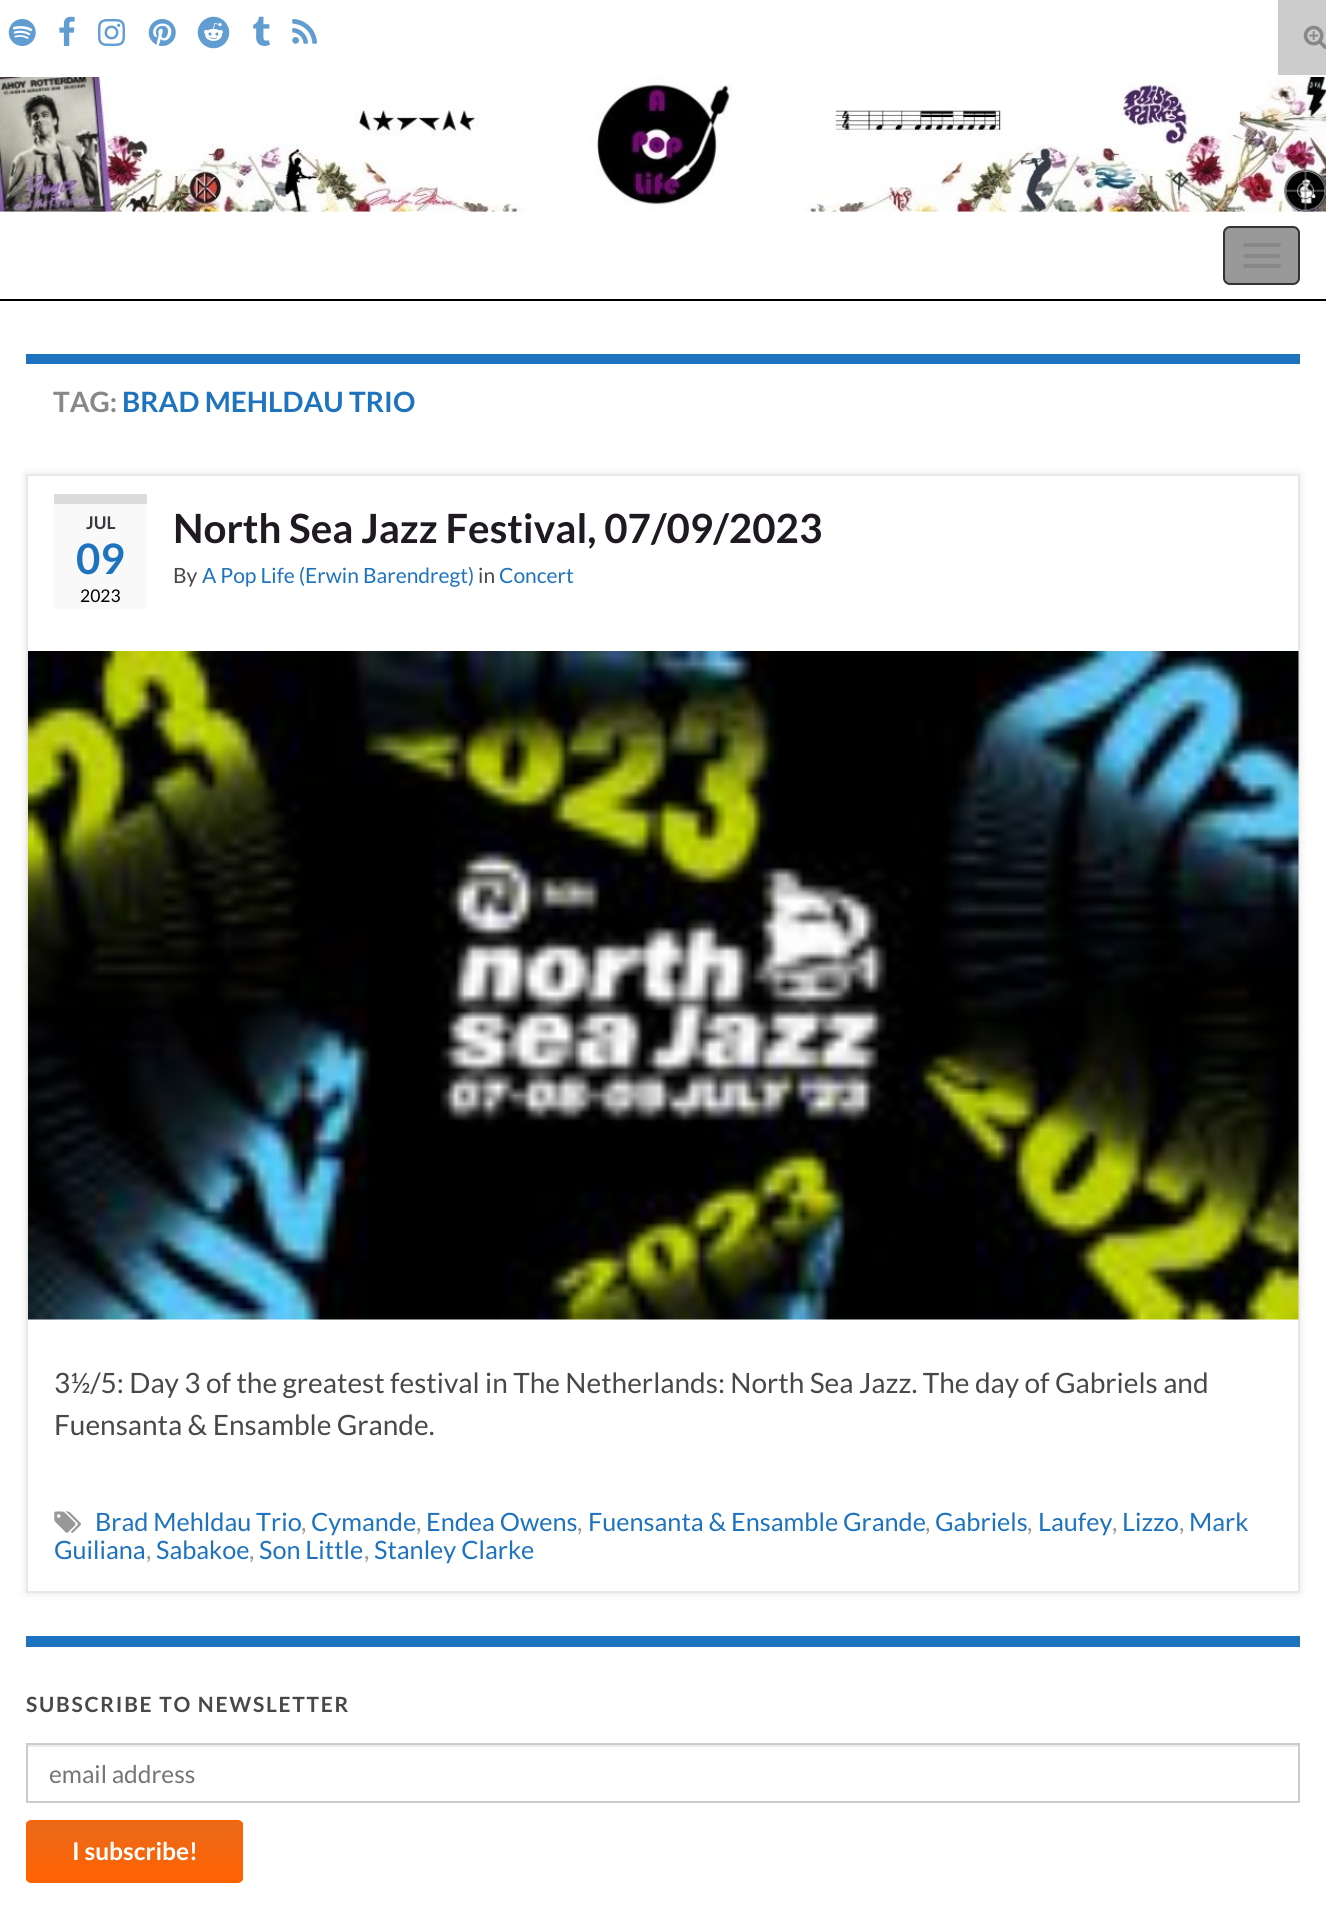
#include <cairo.h>
#include <math.h>
#include <stddef.h>


static void spaced_text(cairo_t *cr, double x, double y, const char *s, double letter, double word) {
    cairo_move_to(cr, x, y);
    while (*s) {
        char ch[5] = {0};
        int n = 0;
        do ch[n++] = *s++; while ((*s & 0xC0) == 0x80);
        cairo_show_text(cr, ch);
        cairo_rel_move_to(cr, letter + word * (*ch == ' '), 0);
    }
}

static void round_rect(cairo_t *cr, double x, double y, double w, double h, double r) {
    cairo_new_sub_path(cr);
    cairo_arc(cr, x + w - r, y + h - r, r, 0, M_PI / 2);
    cairo_arc(cr, x + r, y + h - r, r, M_PI / 2, M_PI);
    cairo_arc(cr, x + r, y + r, r, M_PI, 1.5 * M_PI);
    cairo_arc(cr, x + w - r, y + r, r, 1.5 * M_PI, 2 * M_PI);
    cairo_close_path(cr);
}

static void shadow(cairo_t *cr, double x, double y, double w, double h, double r, double blur, double alpha) {
    cairo_push_group_with_content(cr, CAIRO_CONTENT_ALPHA);
    cairo_set_operator(cr, CAIRO_OPERATOR_SOURCE);
    for (int i = 15; i >= -15 && fmin(w, h) + blur * i / 3 > 0; i -= 2) {
        double e = blur * i / 6;
        cairo_set_source_rgba(cr, 0, 0, 0, alpha * erfc((i - 1) / 8.5) / 2);
        round_rect(cr, x - e, y - e, w + 2 * e, h + 2 * e, fmax(0, fmin(r + e + blur * .6, fmin(w, h) / 2 + e)));
        cairo_fill(cr);
    }
    cairo_pattern_t *soft = cairo_pop_group(cr);
    cairo_mask(cr, soft);
    cairo_pattern_destroy(soft);
}

static void picture(cairo_t *cr, const char *path, double x, double y, double w, double h) {
    cairo_surface_t *image = cairo_image_surface_create_from_png(path);
    cairo_save(cr);
    cairo_set_source_surface(cr, image, x, y);
    cairo_rectangle(cr, x, y, w, h);
    cairo_fill(cr);
    cairo_restore(cr);
    cairo_surface_destroy(image);
}

int main(void) {
    cairo_surface_t *surface = cairo_image_surface_create(CAIRO_FORMAT_RGB24, 1326, 1909);
    cairo_t *cr = cairo_create(surface);
    cairo_font_options_t *options = cairo_font_options_create();
    cairo_font_options_set_hint_metrics(options, CAIRO_HINT_METRICS_OFF);
    cairo_font_options_set_hint_style(options, CAIRO_HINT_STYLE_NONE);
    cairo_set_font_options(cr, options);
    cairo_set_miter_limit(cr, 4);
    cairo_pattern_t *gradient;
    cairo_set_source_rgb(cr, 1, 1, 1);
    cairo_paint(cr);
    picture(cr, "img1.png", 8, 19, 28, 27);
    picture(cr, "img2.png", 59, 16, 16, 30);
    picture(cr, "img3.png", 98, 19, 27, 27);
    picture(cr, "img4.png", 148, 19, 28, 27);
    picture(cr, "img5.png", 197, 16, 33, 33);
    picture(cr, "img6.png", 253, 16, 17, 30);
    picture(cr, "img7.png", 292, 19, 25, 25);
    cairo_set_source_rgb(cr, 0.8, 0.8, 0.8);
    cairo_rectangle(cr, 1278, 0, 48, 75);
    cairo_fill(cr);
    picture(cr, "img8.png", 1303, 25, 23, 24);
    picture(cr, "img9.png", 0, 77, 1326, 135);
    cairo_set_source_rgb(cr, 0, 0, 0);
    cairo_rectangle(cr, 0, 299, 1326, 2);
    cairo_fill(cr);
    cairo_set_source_rgb(cr, 0.6, 0.6, 0.6);
    round_rect(cr, 1224, 227, 75, 57, 6);
    cairo_fill_preserve(cr);
    cairo_set_source_rgb(cr, 0.2, 0.2, 0.2);
    cairo_stroke(cr);
    cairo_set_source_rgb(cr, 0.533, 0.533, 0.533);
    round_rect(cr, 1243, 243, 38, 4, 2);
    cairo_fill(cr);
    round_rect(cr, 1243, 254, 38, 4, 2);
    cairo_fill(cr);
    round_rect(cr, 1243, 264, 38, 4, 2);
    cairo_fill(cr);
    cairo_set_source_rgb(cr, 0.118, 0.451, 0.745);
    cairo_rectangle(cr, 26, 354, 1274, 10);
    cairo_fill(cr);
    cairo_select_font_face(cr, "Lato", CAIRO_FONT_SLANT_NORMAL, CAIRO_FONT_WEIGHT_BOLD);
    cairo_set_font_size(cr, 28);
    cairo_set_source_rgb(cr, 0.533, 0.533, 0.533);
    cairo_move_to(cr, 53, 412);
    cairo_show_text(cr, "TAG:");
    cairo_set_source_rgb(cr, 0.118, 0.451, 0.745);
    cairo_move_to(cr, 122, 412);
    cairo_show_text(cr, "BRAD MEHLDAU TRIO");
    cairo_set_source_rgb(cr, 0, 0, 0);
    shadow(cr, 26, 474, 1274, 1119, 0, 4.5, 0.1);
    cairo_set_source_rgb(cr, 1, 1, 1);
    cairo_rectangle(cr, 27, 475, 1272, 1117);
    cairo_fill_preserve(cr);
    cairo_set_source_rgb(cr, 0.914, 0.91, 0.89);
    cairo_stroke(cr);
    cairo_set_source_rgb(cr, 0.976, 0.976, 0.976);
    cairo_rectangle(cr, 54, 504, 93, 105);
    cairo_fill(cr);
    cairo_set_source_rgb(cr, 0.859, 0.859, 0.859);
    cairo_rectangle(cr, 54, 494, 93, 10);
    cairo_fill(cr);
    cairo_set_font_size(cr, 17.5);
    cairo_set_source_rgb(cr, 0.231, 0.22, 0.239);
    cairo_move_to(cr, 86, 529);
    cairo_show_text(cr, "JUL");
    cairo_set_font_size(cr, 42);
    cairo_set_source_rgb(cr, 0.118, 0.451, 0.745);
    cairo_move_to(cr, 76, 574);
    cairo_show_text(cr, "09");
    cairo_select_font_face(cr, "Lato", CAIRO_FONT_SLANT_NORMAL, CAIRO_FONT_WEIGHT_NORMAL);
    cairo_set_font_size(cr, 17.5);
    cairo_set_source_rgb(cr, 0, 0, 0);
    cairo_move_to(cr, 80, 602);
    cairo_show_text(cr, "2023");
    cairo_select_font_face(cr, "Lato", CAIRO_FONT_SLANT_NORMAL, CAIRO_FONT_WEIGHT_BOLD);
    cairo_set_font_size(cr, 40.3);
    cairo_set_source_rgb(cr, 0.122, 0.102, 0.133);
    cairo_move_to(cr, 173, 543);
    cairo_show_text(cr, "North Sea Jazz Festival, 07/09/2023");
    cairo_select_font_face(cr, "Lato", CAIRO_FONT_SLANT_NORMAL, CAIRO_FONT_WEIGHT_NORMAL);
    cairo_set_font_size(cr, 21);
    cairo_set_source_rgb(cr, 0.29, 0.278, 0.294);
    cairo_move_to(cr, 173, 583);
    cairo_show_text(cr, "By");
    cairo_set_source_rgb(cr, 0.118, 0.451, 0.745);
    cairo_move_to(cr, 202, 583);
    cairo_show_text(cr, "A Pop Life (Erwin Barendregt)");
    cairo_set_source_rgb(cr, 0.29, 0.278, 0.294);
    cairo_move_to(cr, 478, 583);
    cairo_show_text(cr, "in");
    cairo_set_source_rgb(cr, 0.118, 0.451, 0.745);
    cairo_move_to(cr, 499, 583);
    cairo_show_text(cr, "Concert");
    picture(cr, "img10.png", 28, 651, 1271, 669);
    cairo_set_font_size(cr, 28);
    cairo_set_source_rgb(cr, 0.29, 0.278, 0.294);
    cairo_move_to(cr, 54, 1393);
    cairo_show_text(cr, "3½/5: Day 3 of the greatest festival in The Netherlands: North Sea Jazz. The day of Gabriels and");
    cairo_move_to(cr, 54, 1435);
    cairo_show_text(cr, "Fuensanta & Ensamble Grande.");
    picture(cr, "img11.png", 54, 1511, 27, 22);
    cairo_set_font_size(cr, 25.25);
    cairo_set_source_rgb(cr, 0.118, 0.451, 0.745);
    cairo_move_to(cr, 95, 1531);
    cairo_show_text(cr, "Brad Mehldau Trio");
    cairo_set_source_rgb(cr, 0.596, 0.596, 0.596);
    cairo_move_to(cr, 301, 1531);
    cairo_show_text(cr, ",");
    cairo_set_source_rgb(cr, 0.118, 0.451, 0.745);
    cairo_move_to(cr, 311, 1531);
    cairo_show_text(cr, "Cymande");
    cairo_set_source_rgb(cr, 0.596, 0.596, 0.596);
    cairo_move_to(cr, 416, 1531);
    cairo_show_text(cr, ",");
    cairo_set_source_rgb(cr, 0.118, 0.451, 0.745);
    cairo_move_to(cr, 426, 1531);
    cairo_show_text(cr, "Endea Owens");
    cairo_set_source_rgb(cr, 0.596, 0.596, 0.596);
    cairo_move_to(cr, 577, 1531);
    cairo_show_text(cr, ",");
    cairo_set_source_rgb(cr, 0.118, 0.451, 0.745);
    cairo_move_to(cr, 588, 1531);
    cairo_show_text(cr, "Fuensanta & Ensamble Grande");
    cairo_set_source_rgb(cr, 0.596, 0.596, 0.596);
    cairo_move_to(cr, 925, 1531);
    cairo_show_text(cr, ",");
    cairo_set_source_rgb(cr, 0.118, 0.451, 0.745);
    cairo_move_to(cr, 935, 1531);
    cairo_show_text(cr, "Gabriels");
    cairo_set_source_rgb(cr, 0.596, 0.596, 0.596);
    cairo_move_to(cr, 1027, 1531);
    cairo_show_text(cr, ",");
    cairo_set_source_rgb(cr, 0.118, 0.451, 0.745);
    cairo_move_to(cr, 1038, 1531);
    cairo_show_text(cr, "Laufey");
    cairo_set_source_rgb(cr, 0.596, 0.596, 0.596);
    cairo_move_to(cr, 1112, 1531);
    cairo_show_text(cr, ",");
    cairo_set_source_rgb(cr, 0.118, 0.451, 0.745);
    cairo_move_to(cr, 1122, 1531);
    cairo_show_text(cr, "Lizzo");
    cairo_set_source_rgb(cr, 0.596, 0.596, 0.596);
    cairo_move_to(cr, 1179, 1531);
    cairo_show_text(cr, ",");
    cairo_set_source_rgb(cr, 0.118, 0.451, 0.745);
    cairo_move_to(cr, 1189, 1531);
    cairo_show_text(cr, "Mark");
    cairo_move_to(cr, 54, 1559);
    cairo_show_text(cr, "Guiliana");
    cairo_set_source_rgb(cr, 0.596, 0.596, 0.596);
    cairo_move_to(cr, 146, 1559);
    cairo_show_text(cr, ",");
    cairo_set_source_rgb(cr, 0.118, 0.451, 0.745);
    cairo_move_to(cr, 156, 1559);
    cairo_show_text(cr, "Sabakoe");
    cairo_set_source_rgb(cr, 0.596, 0.596, 0.596);
    cairo_move_to(cr, 249, 1559);
    cairo_show_text(cr, ",");
    cairo_set_source_rgb(cr, 0.118, 0.451, 0.745);
    cairo_move_to(cr, 259, 1559);
    cairo_show_text(cr, "Son Little");
    cairo_set_source_rgb(cr, 0.596, 0.596, 0.596);
    cairo_move_to(cr, 364, 1559);
    cairo_show_text(cr, ",");
    cairo_set_source_rgb(cr, 0.118, 0.451, 0.745);
    cairo_move_to(cr, 374, 1559);
    cairo_show_text(cr, "Stanley Clarke");
    cairo_rectangle(cr, 26, 1636, 1274, 11);
    cairo_fill(cr);
    cairo_select_font_face(cr, "Lato", CAIRO_FONT_SLANT_NORMAL, CAIRO_FONT_WEIGHT_BOLD);
    cairo_set_font_size(cr, 21);
    cairo_set_source_rgb(cr, 0.29, 0.278, 0.294);
    spaced_text(cr, 26, 1712, "SUBSCRIBE TO NEWSLETTER", 1.75, 0);
    cairo_set_source_rgb(cr, 0.925, 0.925, 0.925);
    cairo_rectangle(cr, 28, 1745, 1271, 2);
    cairo_fill(cr);
    cairo_rectangle(cr, 27, 1744, 1272, 58);
    cairo_set_source_rgb(cr, 0.8, 0.8, 0.8);
    cairo_stroke(cr);
    cairo_select_font_face(cr, "Lato", CAIRO_FONT_SLANT_NORMAL, CAIRO_FONT_WEIGHT_NORMAL);
    cairo_set_font_size(cr, 24.5);
    cairo_set_source_rgb(cr, 0.459, 0.459, 0.459);
    cairo_move_to(cr, 49, 1783);
    cairo_show_text(cr, "email address");
    cairo_save(cr);
    round_rect(cr, 26, 1820, 217, 63, 5);
    cairo_clip(cr);
    gradient = cairo_pattern_create_linear(135, 1822, 135, 1881);
    cairo_pattern_add_color_stop_rgba(gradient, 0, 0.918, 0.416, 0.106, 1);
    cairo_pattern_add_color_stop_rgba(gradient, 1, 1, 0.384, 0, 1);
    cairo_set_source(cr, gradient);
    cairo_pattern_destroy(gradient);
    cairo_rectangle(cr, 26, 1822, 217, 59);
    cairo_fill(cr);
    cairo_restore(cr);
    round_rect(cr, 27, 1821, 215, 61, 4);
    cairo_set_source_rgb(cr, 1, 0.384, 0);
    cairo_stroke(cr);
    cairo_select_font_face(cr, "Lato", CAIRO_FONT_SLANT_NORMAL, CAIRO_FONT_WEIGHT_BOLD);
    cairo_set_source_rgb(cr, 1, 1, 1);
    cairo_move_to(cr, 72, 1860);
    cairo_show_text(cr, "I subscribe!");
    cairo_surface_write_to_png(surface, "page.png");
    cairo_font_options_destroy(options);
    cairo_destroy(cr);
    cairo_surface_destroy(surface);
    return 0;
}
